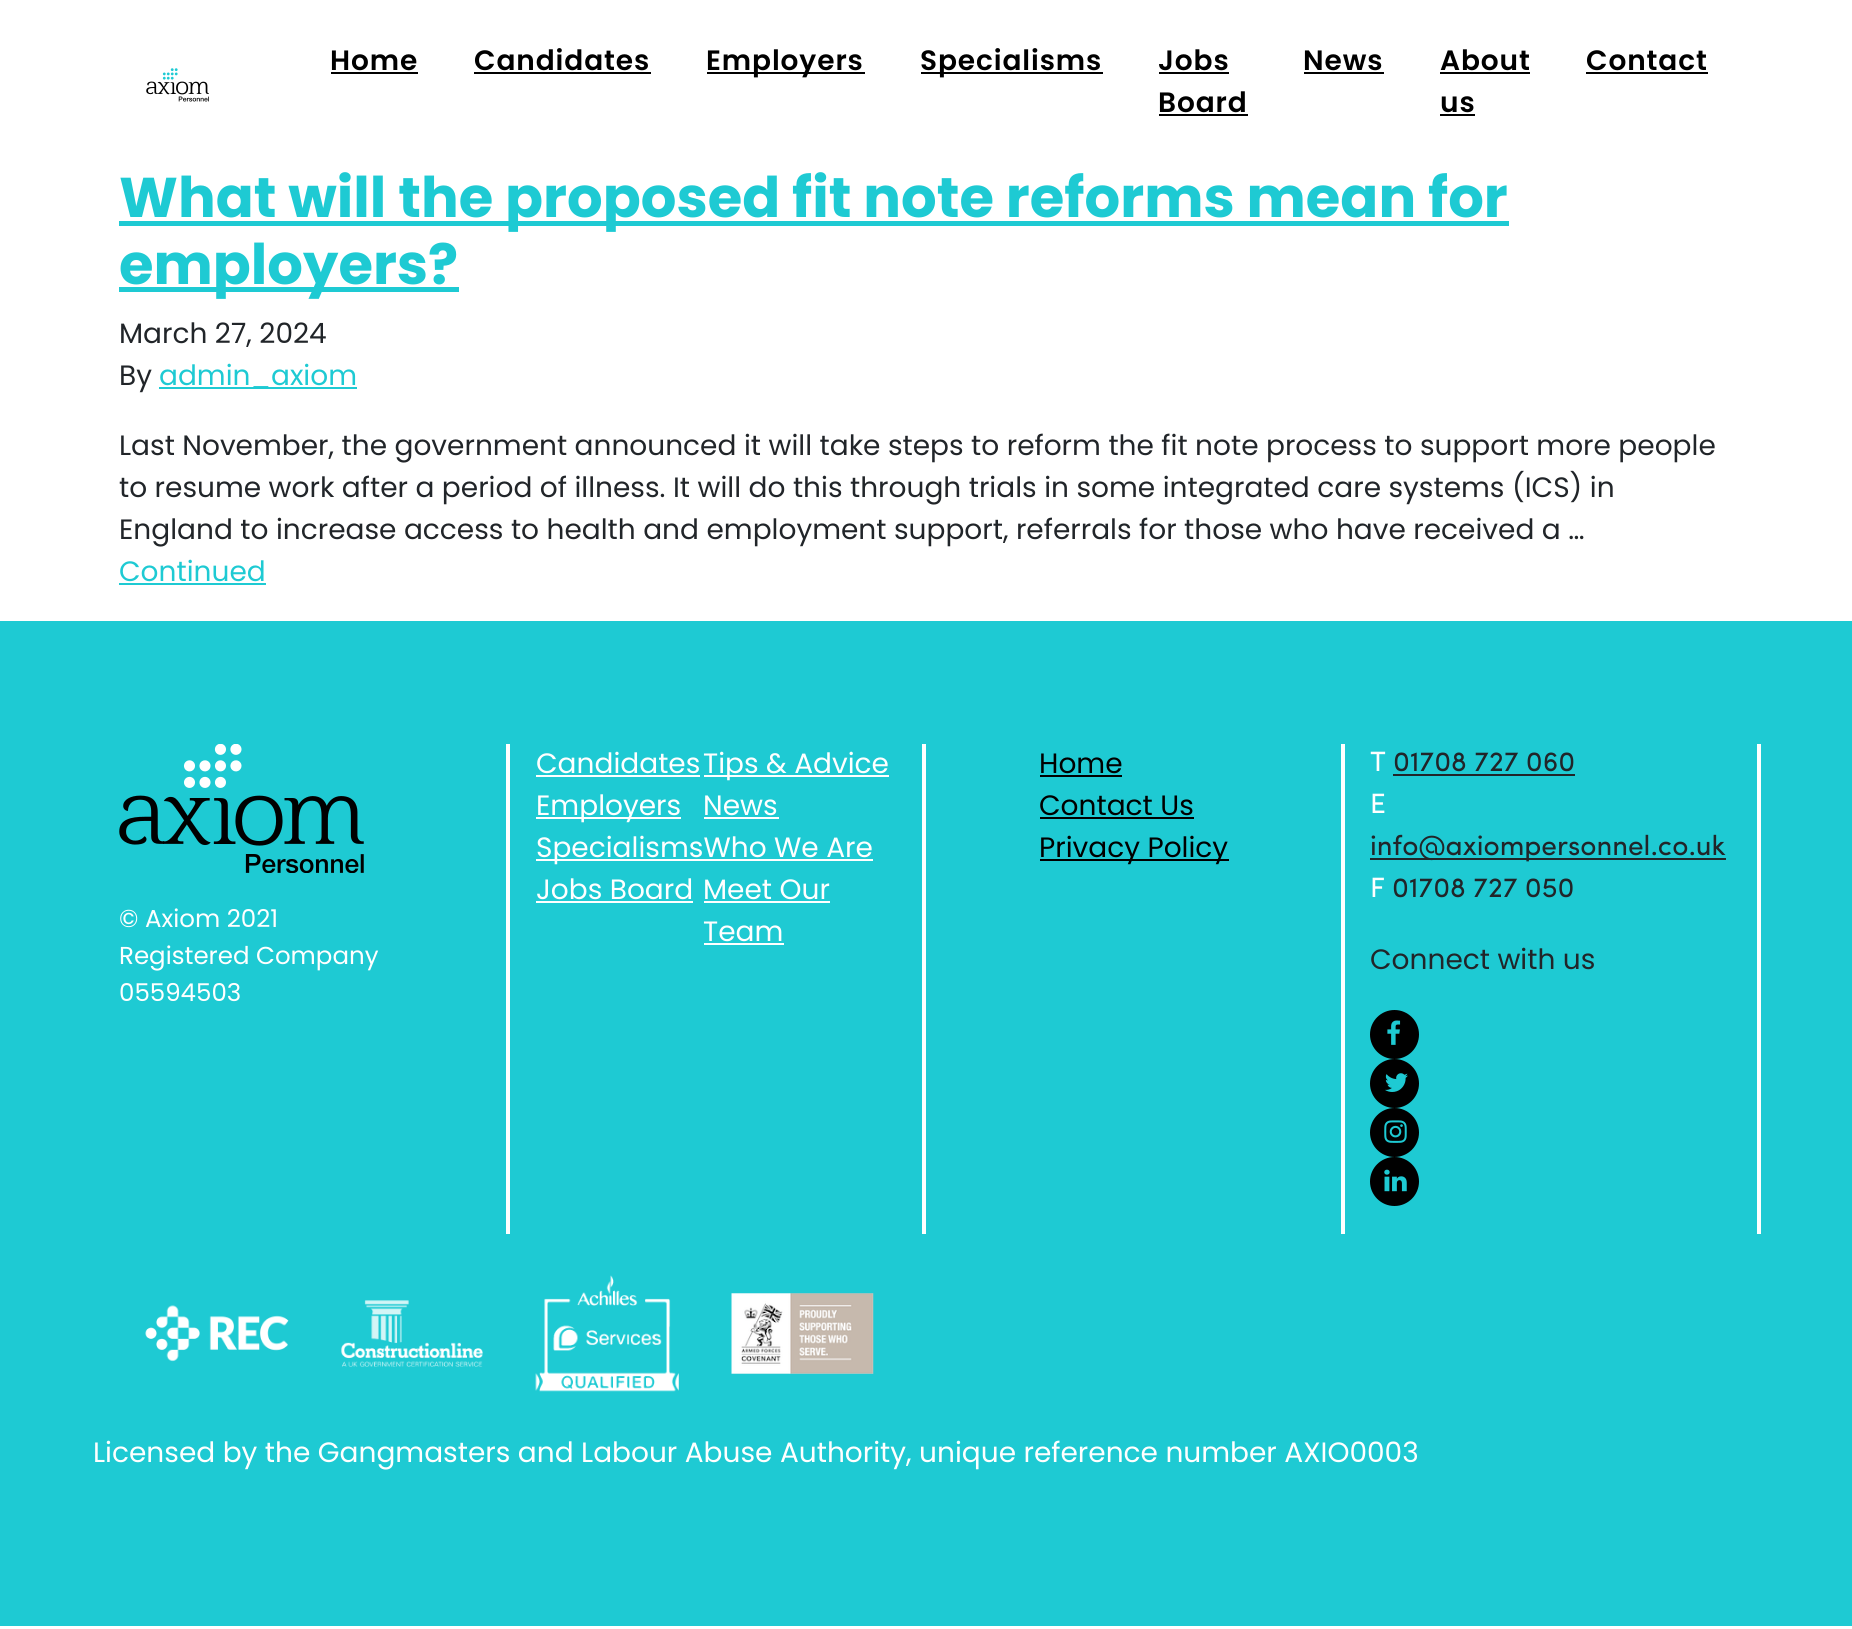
#include <cairo.h>
#include <math.h>
#include <stddef.h>


static void spaced_text(cairo_t *cr, double x, double y, const char *s, double letter, double word) {
    cairo_move_to(cr, x, y);
    while (*s) {
        char ch[5] = {0};
        int n = 0;
        do ch[n++] = *s++; while ((*s & 0xC0) == 0x80);
        cairo_show_text(cr, ch);
        cairo_rel_move_to(cr, letter + word * (*ch == ' '), 0);
    }
}

static void picture(cairo_t *cr, const char *path, double x, double y, double w, double h) {
    cairo_surface_t *image = cairo_image_surface_create_from_png(path);
    cairo_save(cr);
    cairo_set_source_surface(cr, image, x, y);
    cairo_rectangle(cr, x, y, w, h);
    cairo_fill(cr);
    cairo_restore(cr);
    cairo_surface_destroy(image);
}

int main(void) {
    cairo_surface_t *surface = cairo_image_surface_create(CAIRO_FORMAT_RGB24, 1852, 1629);
    cairo_t *cr = cairo_create(surface);
    cairo_font_options_t *options = cairo_font_options_create();
    cairo_font_options_set_hint_metrics(options, CAIRO_HINT_METRICS_OFF);
    cairo_font_options_set_hint_style(options, CAIRO_HINT_STYLE_NONE);
    cairo_set_font_options(cr, options);
    cairo_set_miter_limit(cr, 4);
    cairo_set_source_rgb(cr, 1, 1, 1);
    cairo_paint(cr);
    picture(cr, "img1.png", 146, 68, 63, 34);
    cairo_select_font_face(cr, "Poppins SemiBold", CAIRO_FONT_SLANT_NORMAL, CAIRO_FONT_WEIGHT_NORMAL);
    cairo_set_font_size(cr, 28);
    cairo_set_source_rgb(cr, 0, 0, 0);
    spaced_text(cr, 330, 70, "Home", 0.9, 0);
    cairo_rectangle(cr, 331, 72, 87, 2);
    cairo_fill(cr);
    spaced_text(cr, 474, 70, "Candidates", 0.9, 0);
    cairo_rectangle(cr, 474, 72, 177, 2);
    cairo_fill(cr);
    cairo_rectangle(cr, 707, 72, 158, 2);
    cairo_fill(cr);
    spaced_text(cr, 706, 70, "Employers", 0.9, 0);
    cairo_rectangle(cr, 921, 72, 182, 2);
    cairo_fill(cr);
    spaced_text(cr, 920, 70, "Specialisms", 0.9, 0);
    spaced_text(cr, 1158, 70, "Jobs", 0.9, 0);
    cairo_rectangle(cr, 1159, 72, 70, 2);
    cairo_fill(cr);
    spaced_text(cr, 1158, 112, "Board", 0.9, 0);
    cairo_rectangle(cr, 1159, 114, 89, 2);
    cairo_fill(cr);
    spaced_text(cr, 1303, 70, "News", 0.9, 0);
    cairo_rectangle(cr, 1304, 72, 80, 2);
    cairo_fill(cr);
    spaced_text(cr, 1440, 70, "About", 0.9, 0);
    cairo_rectangle(cr, 1440, 72, 90, 2);
    cairo_fill(cr);
    spaced_text(cr, 1440, 112, "us", 0.9, 0);
    cairo_rectangle(cr, 1440, 114, 35, 2);
    cairo_fill(cr);
    spaced_text(cr, 1586, 70, "Contact", 0.9, 0);
    cairo_rectangle(cr, 1586, 72, 122, 2);
    cairo_fill(cr);
    cairo_set_source_rgb(cr, 0.118, 0.792, 0.827);
    cairo_rectangle(cr, 119, 221, 1390, 5);
    cairo_fill(cr);
    cairo_select_font_face(cr, "Poppins", CAIRO_FONT_SLANT_NORMAL, CAIRO_FONT_WEIGHT_BOLD);
    cairo_set_font_size(cr, 56);
    cairo_move_to(cr, 119, 217);
    cairo_show_text(cr, "What will the proposed fit note reforms mean for");
    cairo_rectangle(cr, 119, 287, 340, 5);
    cairo_fill(cr);
    cairo_move_to(cr, 119, 284);
    cairo_show_text(cr, "employers?");
    cairo_select_font_face(cr, "Poppins", CAIRO_FONT_SLANT_NORMAL, CAIRO_FONT_WEIGHT_NORMAL);
    cairo_set_font_size(cr, 28);
    cairo_set_source_rgb(cr, 0.129, 0.145, 0.161);
    cairo_move_to(cr, 119, 343);
    cairo_show_text(cr, "March 27, 2024");
    cairo_move_to(cr, 119, 385);
    cairo_show_text(cr, "By");
    cairo_set_source_rgb(cr, 0.118, 0.792, 0.827);
    cairo_rectangle(cr, 159, 387, 198, 2);
    cairo_fill(cr);
    cairo_move_to(cr, 159, 385);
    cairo_show_text(cr, "admin_axiom");
    cairo_set_source_rgb(cr, 0.129, 0.145, 0.161);
    cairo_move_to(cr, 119, 455);
    cairo_show_text(cr, "Last November, the government announced it will take steps to reform the fit note process to support more people");
    cairo_move_to(cr, 119, 497);
    cairo_show_text(cr, "to resume work after a period of illness. It will do this through trials in some integrated care systems (ICS) in");
    cairo_move_to(cr, 119, 539);
    cairo_show_text(cr, "England to increase access to health and employment support, referrals for those who have received a …");
    cairo_set_source_rgb(cr, 0.118, 0.792, 0.827);
    cairo_move_to(cr, 119, 581);
    cairo_show_text(cr, "Continued");
    cairo_rectangle(cr, 119, 583, 147, 2);
    cairo_fill(cr);
    cairo_rectangle(cr, 0, 621, 1852, 1005);
    cairo_fill(cr);
    cairo_set_source_rgb(cr, 1, 1, 1);
    cairo_rectangle(cr, 922, 744, 4, 490);
    cairo_fill(cr);
    cairo_move_to(cr, 536, 773);
    cairo_show_text(cr, "Candidates");
    cairo_rectangle(cr, 536, 775, 164, 2);
    cairo_fill(cr);
    cairo_rectangle(cr, 536, 817, 145, 2);
    cairo_fill(cr);
    cairo_move_to(cr, 536, 815);
    cairo_show_text(cr, "Employers");
    cairo_rectangle(cr, 536, 859, 337, 2);
    cairo_fill(cr);
    cairo_move_to(cr, 536, 857);
    cairo_show_text(cr, "SpecialismsWho We Are");
    cairo_move_to(cr, 536, 899);
    cairo_show_text(cr, "Jobs Board");
    cairo_rectangle(cr, 536, 901, 157, 2);
    cairo_fill(cr);
    cairo_rectangle(cr, 704, 775, 185, 2);
    cairo_fill(cr);
    cairo_move_to(cr, 703, 773);
    cairo_show_text(cr, "Tips & Advice");
    cairo_move_to(cr, 703, 815);
    cairo_show_text(cr, "News");
    cairo_rectangle(cr, 704, 817, 75, 2);
    cairo_fill(cr);
    cairo_move_to(cr, 703, 899);
    cairo_show_text(cr, "Meet Our");
    cairo_rectangle(cr, 704, 901, 126, 2);
    cairo_fill(cr);
    cairo_move_to(cr, 703, 941);
    cairo_show_text(cr, "Team");
    cairo_rectangle(cr, 704, 943, 80, 2);
    cairo_fill(cr);
    cairo_rectangle(cr, 1341, 744, 4, 490);
    cairo_fill(cr);
    cairo_set_source_rgb(cr, 0, 0, 0);
    cairo_move_to(cr, 1039, 773);
    cairo_show_text(cr, "Home");
    cairo_rectangle(cr, 1040, 775, 82, 2);
    cairo_fill(cr);
    cairo_move_to(cr, 1039, 815);
    cairo_show_text(cr, "Contact Us");
    cairo_rectangle(cr, 1040, 817, 154, 2);
    cairo_fill(cr);
    cairo_rectangle(cr, 1040, 859, 189, 2);
    cairo_fill(cr);
    cairo_move_to(cr, 1039, 857);
    cairo_show_text(cr, "Privacy Policy");
    cairo_set_source_rgb(cr, 1, 1, 1);
    cairo_rectangle(cr, 1757, 744, 4, 490);
    cairo_fill(cr);
    cairo_select_font_face(cr, "Sofia", CAIRO_FONT_SLANT_NORMAL, CAIRO_FONT_WEIGHT_NORMAL);
    cairo_move_to(cr, 1370, 771);
    cairo_show_text(cr, "T");
    cairo_set_source_rgb(cr, 0.129, 0.145, 0.161);
    cairo_move_to(cr, 1393, 771);
    cairo_show_text(cr, "01708 727 060");
    cairo_rectangle(cr, 1393, 774, 182, 2);
    cairo_fill(cr);
    cairo_set_source_rgb(cr, 1, 1, 1);
    cairo_move_to(cr, 1370, 813);
    cairo_show_text(cr, "E");
    cairo_set_source_rgb(cr, 0.129, 0.145, 0.161);
    cairo_rectangle(cr, 1370, 858, 356, 2);
    cairo_fill(cr);
    cairo_move_to(cr, 1370, 855);
    cairo_show_text(cr, "info@axiompersonnel.co.uk");
    cairo_set_source_rgb(cr, 1, 1, 1);
    cairo_move_to(cr, 1370, 897);
    cairo_show_text(cr, "F");
    cairo_set_source_rgb(cr, 0.129, 0.145, 0.161);
    cairo_move_to(cr, 1392, 897);
    cairo_show_text(cr, "01708 727 050");
    cairo_select_font_face(cr, "Poppins", CAIRO_FONT_SLANT_NORMAL, CAIRO_FONT_WEIGHT_NORMAL);
    cairo_move_to(cr, 1370, 969);
    cairo_show_text(cr, "Connect with us");
    cairo_set_source_rgb(cr, 0, 0, 0);
    cairo_new_path(cr);
    cairo_arc(cr, 1394.5, 1034.5, 24.5, 0, 2 * M_PI);
    cairo_fill(cr);
    picture(cr, "img2.png", 1387, 1020, 14, 25);
    cairo_arc(cr, 1394.5, 1083.5, 24.5, 0, 2 * M_PI);
    cairo_fill(cr);
    picture(cr, "img3.png", 1385, 1073, 23, 19);
    cairo_arc(cr, 1394.5, 1132.5, 24.5, 0, 2 * M_PI);
    cairo_fill(cr);
    picture(cr, "img4.png", 1384, 1120, 23, 23);
    cairo_arc(cr, 1394.5, 1181.5, 24.5, 0, 2 * M_PI);
    cairo_fill(cr);
    picture(cr, "img5.png", 1384, 1169, 23, 23);
    cairo_set_source_rgb(cr, 1, 1, 1);
    cairo_rectangle(cr, 506, 744, 4, 490);
    cairo_fill(cr);
    picture(cr, "img6.png", 119, 744, 245, 129);
    cairo_set_font_size(cr, 24.5);
    cairo_move_to(cr, 119, 927);
    cairo_show_text(cr, "© Axiom 2021");
    cairo_move_to(cr, 119, 964);
    cairo_show_text(cr, "Registered Company");
    cairo_move_to(cr, 119, 1001);
    cairo_show_text(cr, "05594503");
    picture(cr, "img7.png", 145, 1305, 144, 57);
    picture(cr, "img8.png", 341, 1300, 142, 67);
    picture(cr, "img9.png", 535, 1275, 144, 117);
    picture(cr, "img10.png", 731, 1293, 143, 81);
    cairo_set_font_size(cr, 28);
    cairo_move_to(cr, 93, 1462);
    cairo_show_text(cr, "Licensed by the Gangmasters and Labour Abuse Authority, unique reference number AXIO0003");
    cairo_surface_write_to_png(surface, "page.png");
    cairo_font_options_destroy(options);
    cairo_destroy(cr);
    cairo_surface_destroy(surface);
    return 0;
}
